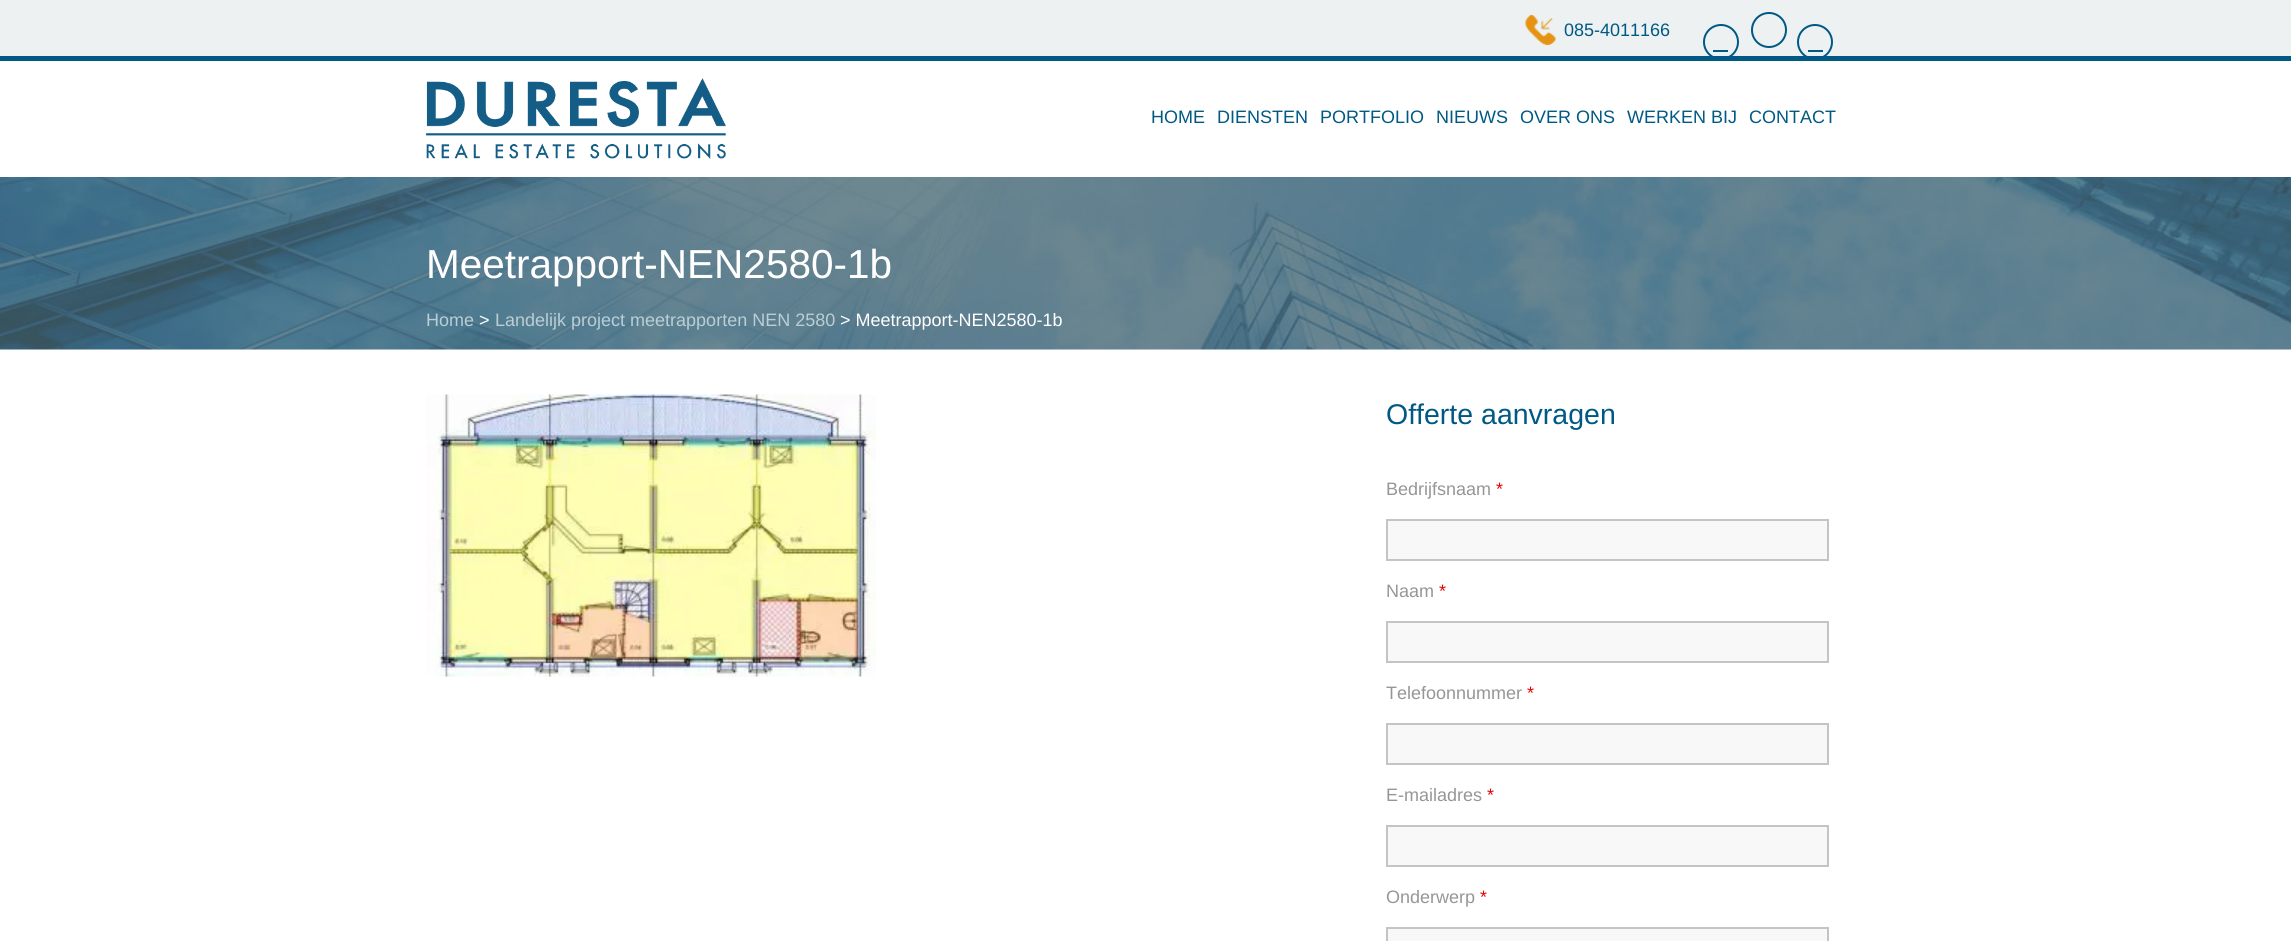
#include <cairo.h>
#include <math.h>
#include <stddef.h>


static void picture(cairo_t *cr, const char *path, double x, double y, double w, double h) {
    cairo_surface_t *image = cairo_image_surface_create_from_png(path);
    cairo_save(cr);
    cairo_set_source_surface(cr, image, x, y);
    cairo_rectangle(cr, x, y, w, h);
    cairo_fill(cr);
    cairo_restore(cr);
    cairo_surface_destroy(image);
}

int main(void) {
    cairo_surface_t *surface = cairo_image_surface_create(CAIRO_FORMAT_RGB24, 2291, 941);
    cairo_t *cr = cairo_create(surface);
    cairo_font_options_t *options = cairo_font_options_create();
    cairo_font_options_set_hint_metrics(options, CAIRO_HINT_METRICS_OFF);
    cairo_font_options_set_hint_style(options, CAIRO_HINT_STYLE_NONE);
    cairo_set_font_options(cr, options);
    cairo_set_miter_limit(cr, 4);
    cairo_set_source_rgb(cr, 1, 1, 1);
    cairo_paint(cr);
    cairo_set_source_rgb(cr, 0.929, 0.945, 0.949);
    cairo_rectangle(cr, 0, 0, 2291, 56);
    cairo_fill(cr);
    cairo_set_source_rgb(cr, 0, 0.349, 0.518);
    cairo_rectangle(cr, 0, 56, 2291, 5);
    cairo_fill(cr);
    picture(cr, "img1.png", 1525, 15, 31, 30);
    cairo_select_font_face(cr, "Liberation Sans", CAIRO_FONT_SLANT_NORMAL, CAIRO_FONT_WEIGHT_NORMAL);
    cairo_set_font_size(cr, 18);
    cairo_move_to(cr, 1564, 36);
    cairo_show_text(cr, "085-4011166");
    cairo_new_path(cr);
    cairo_arc(cr, 1721, 42, 17, 0, 2 * M_PI);
    cairo_stroke(cr);
    cairo_rectangle(cr, 1713, 50, 15, 2);
    cairo_fill(cr);
    cairo_arc(cr, 1769, 30, 17, 0, 2 * M_PI);
    cairo_stroke(cr);
    cairo_arc(cr, 1815, 42, 17, 0, 2 * M_PI);
    cairo_stroke(cr);
    cairo_rectangle(cr, 1808, 50, 15, 2);
    cairo_fill(cr);
    picture(cr, "img2.png", 426, 78, 300, 81);
    cairo_move_to(cr, 1151, 123);
    cairo_show_text(cr, "HOME");
    cairo_move_to(cr, 1217, 123);
    cairo_show_text(cr, "DIENSTEN");
    cairo_move_to(cr, 1320, 123);
    cairo_show_text(cr, "PORTFOLIO");
    cairo_move_to(cr, 1436, 123);
    cairo_show_text(cr, "NIEUWS");
    cairo_move_to(cr, 1520, 123);
    cairo_show_text(cr, "OVER ONS");
    cairo_move_to(cr, 1627, 123);
    cairo_show_text(cr, "WERKEN BIJ");
    cairo_move_to(cr, 1749, 123);
    cairo_show_text(cr, "CONTACT");
    picture(cr, "img3.png", 0, 177, 2291, 173);
    cairo_set_font_size(cr, 40.5);
    cairo_set_source_rgb(cr, 1, 1, 1);
    cairo_move_to(cr, 426, 278);
    cairo_show_text(cr, "Meetrapport-NEN2580-1b");
    cairo_set_font_size(cr, 18);
    cairo_set_source_rgb(cr, 0.725, 0.808, 0.835);
    cairo_move_to(cr, 426, 326);
    cairo_show_text(cr, "Home");
    cairo_set_source_rgb(cr, 1, 1, 1);
    cairo_move_to(cr, 479, 326);
    cairo_show_text(cr, ">");
    cairo_set_source_rgb(cr, 0.725, 0.808, 0.835);
    cairo_move_to(cr, 495, 326);
    cairo_show_text(cr, "Landelijk project meetrapporten NEN 2580");
    cairo_set_source_rgb(cr, 1, 1, 1);
    cairo_move_to(cr, 840, 326);
    cairo_show_text(cr, "> Meetrapport-NEN2580-1b");
    picture(cr, "img4.png", 426, 394, 450, 283);
    cairo_set_font_size(cr, 28.5);
    cairo_set_source_rgb(cr, 0, 0.349, 0.518);
    cairo_move_to(cr, 1386, 424);
    cairo_show_text(cr, "Offerte aanvragen");
    cairo_set_font_size(cr, 18);
    cairo_set_source_rgb(cr, 0.588, 0.588, 0.588);
    cairo_move_to(cr, 1386, 495);
    cairo_show_text(cr, "Bedrijfsnaam");
    cairo_set_source_rgb(cr, 0.91, 0, 0);
    cairo_move_to(cr, 1496, 495);
    cairo_show_text(cr, "*");
    cairo_set_source_rgb(cr, 0.969, 0.969, 0.969);
    cairo_rectangle(cr, 1387, 520, 441, 40);
    cairo_fill_preserve(cr);
    cairo_set_source_rgb(cr, 0.769, 0.769, 0.769);
    cairo_stroke(cr);
    cairo_set_source_rgb(cr, 0.588, 0.588, 0.588);
    cairo_move_to(cr, 1386, 597);
    cairo_show_text(cr, "Naam");
    cairo_set_source_rgb(cr, 0.91, 0, 0);
    cairo_move_to(cr, 1439, 597);
    cairo_show_text(cr, "*");
    cairo_set_source_rgb(cr, 0.969, 0.969, 0.969);
    cairo_rectangle(cr, 1387, 622, 441, 40);
    cairo_fill_preserve(cr);
    cairo_set_source_rgb(cr, 0.769, 0.769, 0.769);
    cairo_stroke(cr);
    cairo_set_source_rgb(cr, 0.588, 0.588, 0.588);
    cairo_move_to(cr, 1386, 699);
    cairo_show_text(cr, "Telefoonnummer");
    cairo_set_source_rgb(cr, 0.91, 0, 0);
    cairo_move_to(cr, 1527, 699);
    cairo_show_text(cr, "*");
    cairo_set_source_rgb(cr, 0.969, 0.969, 0.969);
    cairo_rectangle(cr, 1387, 724, 441, 40);
    cairo_fill_preserve(cr);
    cairo_set_source_rgb(cr, 0.769, 0.769, 0.769);
    cairo_stroke(cr);
    cairo_set_source_rgb(cr, 0.588, 0.588, 0.588);
    cairo_move_to(cr, 1386, 801);
    cairo_show_text(cr, "E-mailadres");
    cairo_set_source_rgb(cr, 0.91, 0, 0);
    cairo_move_to(cr, 1487, 801);
    cairo_show_text(cr, "*");
    cairo_set_source_rgb(cr, 0.969, 0.969, 0.969);
    cairo_rectangle(cr, 1387, 826, 441, 40);
    cairo_fill_preserve(cr);
    cairo_set_source_rgb(cr, 0.769, 0.769, 0.769);
    cairo_stroke(cr);
    cairo_set_source_rgb(cr, 0.588, 0.588, 0.588);
    cairo_move_to(cr, 1386, 903);
    cairo_show_text(cr, "Onderwerp");
    cairo_set_source_rgb(cr, 0.91, 0, 0);
    cairo_move_to(cr, 1480, 903);
    cairo_show_text(cr, "*");
    cairo_set_source_rgb(cr, 0.969, 0.969, 0.969);
    cairo_rectangle(cr, 1387, 928, 441, 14);
    cairo_fill_preserve(cr);
    cairo_set_source_rgb(cr, 0.769, 0.769, 0.769);
    cairo_stroke(cr);
    cairo_surface_write_to_png(surface, "page.png");
    cairo_font_options_destroy(options);
    cairo_destroy(cr);
    cairo_surface_destroy(surface);
    return 0;
}
